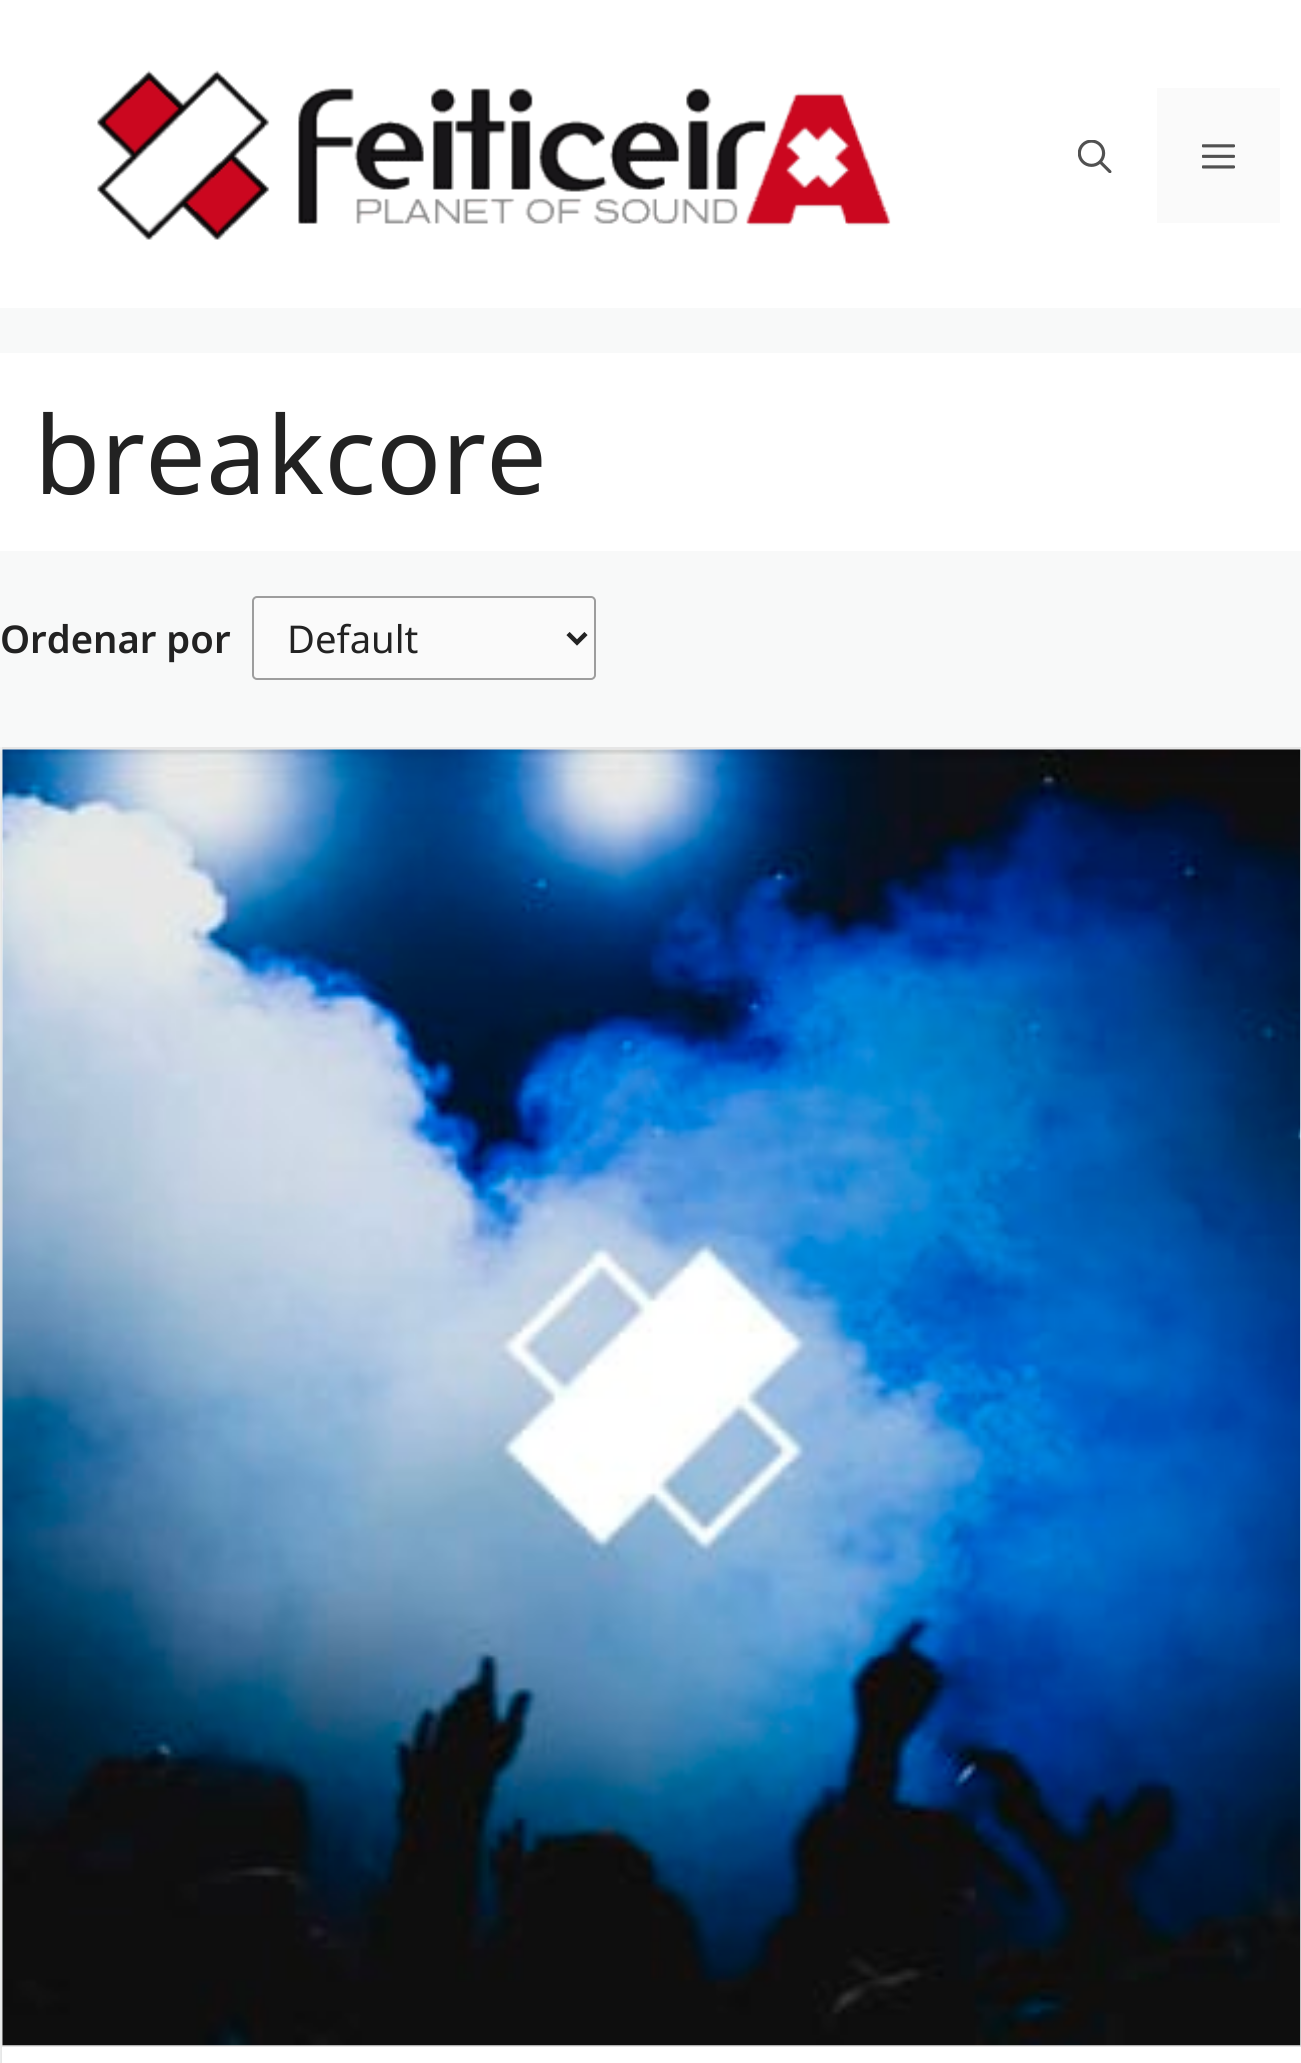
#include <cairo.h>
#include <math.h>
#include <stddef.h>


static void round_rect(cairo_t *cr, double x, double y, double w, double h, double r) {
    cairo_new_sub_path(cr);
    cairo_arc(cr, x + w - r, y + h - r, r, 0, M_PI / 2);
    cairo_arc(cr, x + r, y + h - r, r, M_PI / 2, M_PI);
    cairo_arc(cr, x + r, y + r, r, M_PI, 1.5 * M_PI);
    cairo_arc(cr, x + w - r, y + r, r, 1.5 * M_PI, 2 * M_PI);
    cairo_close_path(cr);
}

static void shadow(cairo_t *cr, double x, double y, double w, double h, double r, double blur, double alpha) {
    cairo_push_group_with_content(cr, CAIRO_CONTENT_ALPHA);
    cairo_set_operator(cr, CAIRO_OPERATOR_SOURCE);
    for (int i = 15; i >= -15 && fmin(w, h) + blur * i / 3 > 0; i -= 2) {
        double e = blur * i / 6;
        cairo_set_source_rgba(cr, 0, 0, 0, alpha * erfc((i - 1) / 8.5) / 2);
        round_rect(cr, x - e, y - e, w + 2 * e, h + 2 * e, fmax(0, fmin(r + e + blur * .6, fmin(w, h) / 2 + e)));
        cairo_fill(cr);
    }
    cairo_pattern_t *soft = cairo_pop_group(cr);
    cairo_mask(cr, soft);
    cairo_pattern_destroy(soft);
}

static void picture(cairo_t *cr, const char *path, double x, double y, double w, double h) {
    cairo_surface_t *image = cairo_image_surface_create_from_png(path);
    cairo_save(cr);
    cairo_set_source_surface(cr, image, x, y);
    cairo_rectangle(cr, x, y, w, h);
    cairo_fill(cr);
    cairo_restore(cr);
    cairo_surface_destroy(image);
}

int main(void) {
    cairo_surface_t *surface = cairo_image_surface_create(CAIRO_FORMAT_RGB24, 1301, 2063);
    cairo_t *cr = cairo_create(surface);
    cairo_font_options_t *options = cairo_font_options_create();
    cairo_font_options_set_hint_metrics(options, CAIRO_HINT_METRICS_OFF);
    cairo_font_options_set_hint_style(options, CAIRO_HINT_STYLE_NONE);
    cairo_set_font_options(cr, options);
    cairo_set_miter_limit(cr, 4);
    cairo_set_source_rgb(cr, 0.969, 0.973, 0.976);
    cairo_paint(cr);
    cairo_set_source_rgb(cr, 1, 1, 1);
    cairo_rectangle(cr, 0, 0, 1301, 308);
    cairo_fill(cr);
    picture(cr, "img1.png", 97, 70, 794, 170);
    picture(cr, "img2.png", 1078, 140, 34, 33);
    cairo_set_source_rgb(cr, 0.98, 0.98, 0.98);
    cairo_rectangle(cr, 1157, 88, 123, 135);
    cairo_fill(cr);
    picture(cr, "img3.png", 1202, 144, 33, 25);
    cairo_set_source_rgb(cr, 1, 1, 1);
    cairo_rectangle(cr, 0, 353, 1301, 198);
    cairo_fill(cr);
    cairo_select_font_face(cr, "Noto Sans", CAIRO_FONT_SLANT_NORMAL, CAIRO_FONT_WEIGHT_NORMAL);
    cairo_set_font_size(cr, 108);
    cairo_set_source_rgb(cr, 0.133, 0.133, 0.133);
    cairo_move_to(cr, 34, 494);
    cairo_show_text(cr, "breakcore");
    cairo_select_font_face(cr, "Noto Sans SemiBold", CAIRO_FONT_SLANT_NORMAL, CAIRO_FONT_WEIGHT_NORMAL);
    cairo_set_font_size(cr, 38.25);
    cairo_move_to(cr, 0, 653);
    cairo_show_text(cr, "Ordenar por");
    cairo_set_source_rgb(cr, 0.98, 0.98, 0.98);
    round_rect(cr, 253, 597, 342, 82, 4);
    cairo_fill_preserve(cr);
    cairo_set_source_rgb(cr, 0.616, 0.616, 0.616);
    cairo_stroke(cr);
    cairo_new_path(cr);
    cairo_move_to(cr, 568, 633.5);
    cairo_line_to(cr, 577, 642.5);
    cairo_line_to(cr, 586, 633.5);
    cairo_set_source_rgb(cr, 0.133, 0.133, 0.133);
    cairo_set_line_width(cr, 4.5);
    cairo_stroke(cr);
    cairo_select_font_face(cr, "Noto Sans", CAIRO_FONT_SLANT_NORMAL, CAIRO_FONT_WEIGHT_NORMAL);
    cairo_move_to(cr, 287, 653);
    cairo_show_text(cr, "Default");
    cairo_save(cr);
    cairo_rectangle(cr, 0, 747, 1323, 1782);
    cairo_clip(cr);
    cairo_set_source_rgb(cr, 0, 0, 0);
    shadow(cr, 2, 752, 1299, 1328, 0, 5.5, 0.15);
    cairo_restore(cr);
    cairo_set_source_rgb(cr, 1, 1, 1);
    cairo_rectangle(cr, 2, 749, 1299, 1314);
    cairo_fill(cr);
    cairo_set_source_rgb(cr, 0.902, 0.902, 0.902);
    cairo_rectangle(cr, 2, 747, 1299, 2);
    cairo_fill(cr);
    picture(cr, "img4.png", 2, 749, 1299, 1297);
    cairo_set_source_rgba(cr, 0, 0, 0, 0.1);
    cairo_rectangle(cr, 2, 2045, 1299, 2);
    cairo_fill(cr);
    cairo_surface_write_to_png(surface, "page.png");
    cairo_font_options_destroy(options);
    cairo_destroy(cr);
    cairo_surface_destroy(surface);
    return 0;
}
